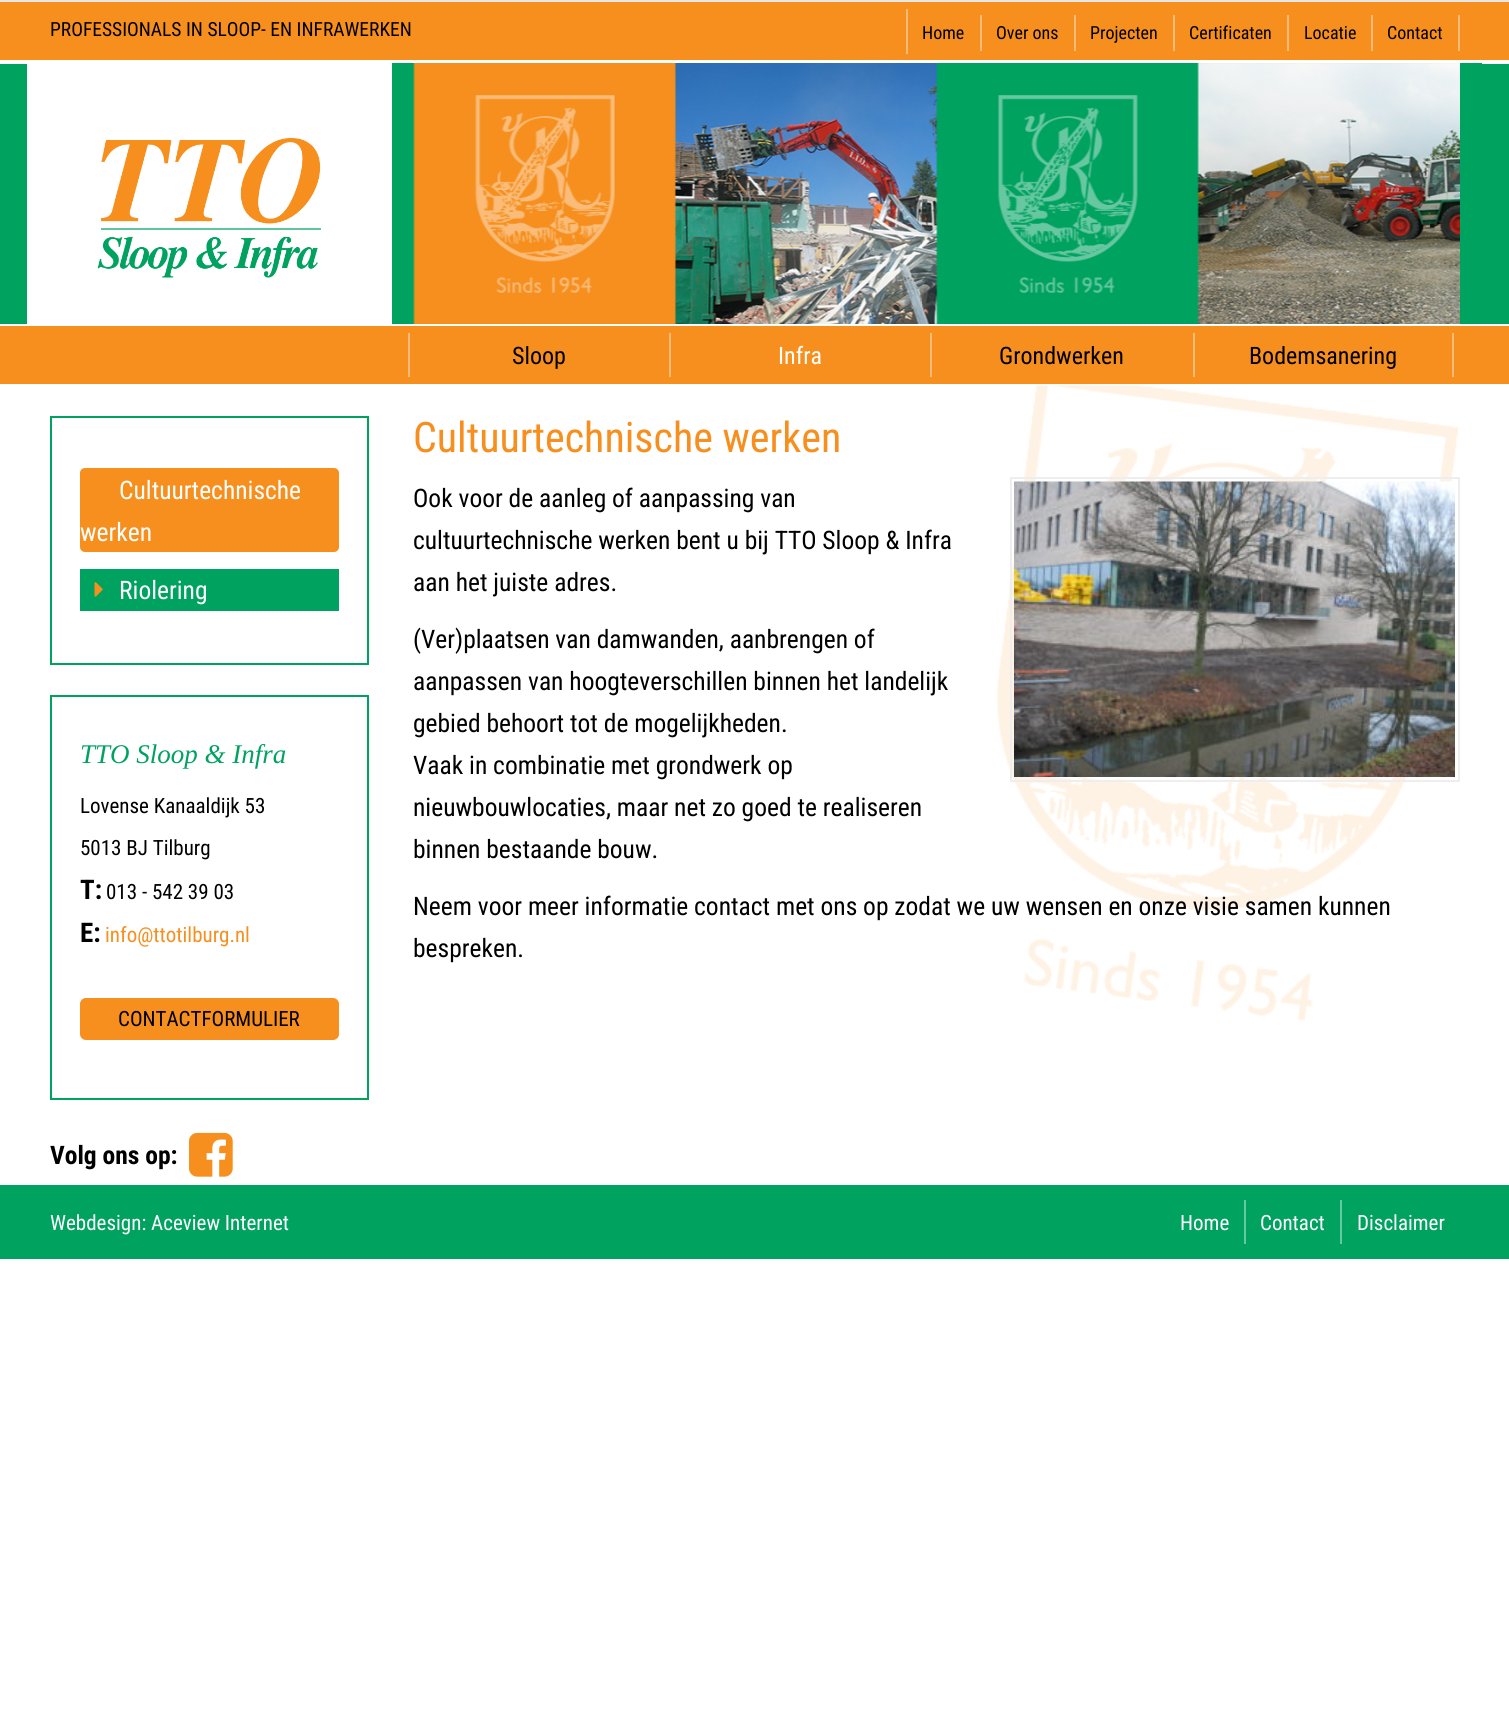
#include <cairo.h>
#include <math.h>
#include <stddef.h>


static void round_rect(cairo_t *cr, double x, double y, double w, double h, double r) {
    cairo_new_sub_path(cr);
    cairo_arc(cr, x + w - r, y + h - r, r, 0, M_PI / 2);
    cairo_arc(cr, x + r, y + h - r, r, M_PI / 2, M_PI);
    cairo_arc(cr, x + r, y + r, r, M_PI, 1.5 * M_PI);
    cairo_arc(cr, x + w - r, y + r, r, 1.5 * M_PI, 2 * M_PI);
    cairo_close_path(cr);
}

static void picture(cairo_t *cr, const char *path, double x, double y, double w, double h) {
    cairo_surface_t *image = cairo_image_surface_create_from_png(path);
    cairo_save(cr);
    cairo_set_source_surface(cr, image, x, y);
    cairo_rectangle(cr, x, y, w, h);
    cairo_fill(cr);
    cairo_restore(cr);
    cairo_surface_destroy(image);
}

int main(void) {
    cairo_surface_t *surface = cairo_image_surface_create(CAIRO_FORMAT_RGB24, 1509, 1727);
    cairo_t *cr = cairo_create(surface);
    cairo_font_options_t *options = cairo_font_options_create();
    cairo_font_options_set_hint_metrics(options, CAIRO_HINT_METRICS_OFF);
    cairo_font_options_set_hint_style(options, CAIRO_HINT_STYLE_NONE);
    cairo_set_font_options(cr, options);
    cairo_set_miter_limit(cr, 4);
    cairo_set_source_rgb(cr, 1, 1, 1);
    cairo_paint(cr);
    cairo_set_source_rgb(cr, 0.906, 0.906, 0.91);
    cairo_rectangle(cr, 0, 0, 1509, 2);
    cairo_fill(cr);
    cairo_set_source_rgb(cr, 0.965, 0.561, 0.118);
    cairo_rectangle(cr, 0, 2, 1509, 58);
    cairo_fill(cr);
    cairo_select_font_face(cr, "Roboto Condensed", CAIRO_FONT_SLANT_NORMAL, CAIRO_FONT_WEIGHT_NORMAL);
    cairo_set_font_size(cr, 19.5);
    cairo_set_source_rgb(cr, 0, 0, 0);
    cairo_move_to(cr, 50, 36);
    cairo_show_text(cr, "PROFESSIONALS IN SLOOP- EN INFRAWERKEN");
    cairo_set_source_rgb(cr, 0.98, 0.737, 0.471);
    cairo_rectangle(cr, 906, 9, 2, 45);
    cairo_fill(cr);
    cairo_set_font_size(cr, 18);
    cairo_set_source_rgb(cr, 0, 0, 0);
    cairo_move_to(cr, 922, 39);
    cairo_show_text(cr, "Home");
    cairo_set_source_rgb(cr, 0.98, 0.737, 0.471);
    cairo_rectangle(cr, 980, 15, 2, 36);
    cairo_fill(cr);
    cairo_set_source_rgb(cr, 0, 0, 0);
    cairo_move_to(cr, 996, 39);
    cairo_show_text(cr, "Over ons");
    cairo_set_source_rgb(cr, 0.98, 0.737, 0.471);
    cairo_rectangle(cr, 1074, 15, 2, 36);
    cairo_fill(cr);
    cairo_set_source_rgb(cr, 0, 0, 0);
    cairo_move_to(cr, 1090, 39);
    cairo_show_text(cr, "Projecten");
    cairo_set_source_rgb(cr, 0.98, 0.737, 0.471);
    cairo_rectangle(cr, 1173, 15, 2, 36);
    cairo_fill(cr);
    cairo_set_source_rgb(cr, 0, 0, 0);
    cairo_move_to(cr, 1189, 39);
    cairo_show_text(cr, "Certificaten");
    cairo_set_source_rgb(cr, 0.98, 0.737, 0.471);
    cairo_rectangle(cr, 1287, 15, 2, 36);
    cairo_fill(cr);
    cairo_set_source_rgb(cr, 0, 0, 0);
    cairo_move_to(cr, 1304, 39);
    cairo_show_text(cr, "Locatie");
    cairo_set_source_rgb(cr, 0.98, 0.737, 0.471);
    cairo_rectangle(cr, 1371, 15, 2, 36);
    cairo_fill(cr);
    cairo_set_source_rgb(cr, 0, 0, 0);
    cairo_move_to(cr, 1387, 39);
    cairo_show_text(cr, "Contact");
    cairo_set_source_rgb(cr, 0.98, 0.737, 0.471);
    cairo_rectangle(cr, 1458, 15, 2, 36);
    cairo_fill(cr);
    cairo_set_source_rgb(cr, 0, 0.635, 0.376);
    cairo_rectangle(cr, 0, 64, 1509, 260);
    cairo_fill(cr);
    cairo_set_source_rgb(cr, 1, 1, 1);
    cairo_rectangle(cr, 27, 64, 365, 260);
    cairo_fill(cr);
    picture(cr, "img1.png", 97, 138, 224, 140);
    cairo_set_source_rgb(cr, 0, 0.635, 0.376);
    cairo_rectangle(cr, 392, 63, 1090, 1);
    cairo_fill(cr);
    picture(cr, "img2.png", 413, 63, 1047, 261);
    cairo_set_source_rgb(cr, 0.965, 0.561, 0.118);
    cairo_rectangle(cr, 0, 326, 1509, 58);
    cairo_fill(cr);
    cairo_set_source_rgb(cr, 0.98, 0.737, 0.471);
    cairo_rectangle(cr, 408, 333, 2, 44);
    cairo_fill(cr);
    cairo_set_font_size(cr, 24);
    cairo_set_source_rgb(cr, 0, 0, 0);
    cairo_move_to(cr, 512, 364);
    cairo_show_text(cr, "Sloop");
    cairo_set_source_rgb(cr, 0.98, 0.737, 0.471);
    cairo_rectangle(cr, 669, 333, 2, 44);
    cairo_fill(cr);
    cairo_set_source_rgb(cr, 1, 1, 1);
    cairo_move_to(cr, 778, 364);
    cairo_show_text(cr, "Infra");
    cairo_set_source_rgb(cr, 0.98, 0.737, 0.471);
    cairo_rectangle(cr, 930, 333, 2, 44);
    cairo_fill(cr);
    cairo_set_source_rgb(cr, 0, 0, 0);
    cairo_move_to(cr, 999, 364);
    cairo_show_text(cr, "Grondwerken");
    cairo_set_source_rgb(cr, 0.98, 0.737, 0.471);
    cairo_rectangle(cr, 1452, 333, 2, 44);
    cairo_fill(cr);
    cairo_rectangle(cr, 1193, 333, 2, 44);
    cairo_fill(cr);
    cairo_set_source_rgb(cr, 0, 0, 0);
    cairo_move_to(cr, 1249, 364);
    cairo_show_text(cr, "Bodemsanering");
    cairo_rectangle(cr, 51, 417, 317, 247);
    cairo_set_source_rgb(cr, 0, 0.635, 0.376);
    cairo_stroke(cr);
    cairo_set_source_rgb(cr, 0.965, 0.561, 0.118);
    round_rect(cr, 80, 468, 259, 84, 5);
    cairo_fill(cr);
    cairo_set_font_size(cr, 25.5);
    cairo_set_source_rgb(cr, 1, 1, 1);
    cairo_move_to(cr, 119, 499);
    cairo_show_text(cr, "Cultuurtechnische");
    cairo_move_to(cr, 80, 541);
    cairo_show_text(cr, "werken");
    cairo_set_source_rgb(cr, 0, 0.635, 0.376);
    cairo_rectangle(cr, 80, 569, 259, 42);
    cairo_fill(cr);
    picture(cr, "img3.png", 94, 582, 9, 15);
    cairo_set_source_rgb(cr, 1, 1, 1);
    cairo_move_to(cr, 119, 599);
    cairo_show_text(cr, "Riolering");
    cairo_rectangle(cr, 51, 696, 317, 403);
    cairo_set_source_rgb(cr, 0, 0.635, 0.376);
    cairo_stroke(cr);
    cairo_select_font_face(cr, "Liberation Serif", CAIRO_FONT_SLANT_ITALIC, CAIRO_FONT_WEIGHT_NORMAL);
    cairo_set_font_size(cr, 27);
    cairo_move_to(cr, 80, 763);
    cairo_show_text(cr, "TTO Sloop & Infra");
    cairo_select_font_face(cr, "Roboto Condensed", CAIRO_FONT_SLANT_NORMAL, CAIRO_FONT_WEIGHT_NORMAL);
    cairo_set_font_size(cr, 21);
    cairo_set_source_rgb(cr, 0, 0, 0);
    cairo_move_to(cr, 80, 813);
    cairo_show_text(cr, "Lovense Kanaaldijk 53");
    cairo_move_to(cr, 80, 855);
    cairo_show_text(cr, "5013 BJ Tilburg");
    cairo_select_font_face(cr, "Roboto Condensed", CAIRO_FONT_SLANT_NORMAL, CAIRO_FONT_WEIGHT_BOLD);
    cairo_set_font_size(cr, 27);
    cairo_move_to(cr, 80, 899);
    cairo_show_text(cr, "T:");
    cairo_select_font_face(cr, "Roboto Condensed", CAIRO_FONT_SLANT_NORMAL, CAIRO_FONT_WEIGHT_NORMAL);
    cairo_set_font_size(cr, 21);
    cairo_move_to(cr, 106, 899);
    cairo_show_text(cr, "013 - 542 39 03");
    cairo_select_font_face(cr, "Roboto Condensed", CAIRO_FONT_SLANT_NORMAL, CAIRO_FONT_WEIGHT_BOLD);
    cairo_set_font_size(cr, 27);
    cairo_move_to(cr, 80, 942);
    cairo_show_text(cr, "E:");
    cairo_select_font_face(cr, "Roboto Condensed", CAIRO_FONT_SLANT_NORMAL, CAIRO_FONT_WEIGHT_NORMAL);
    cairo_set_font_size(cr, 21);
    cairo_set_source_rgb(cr, 0.965, 0.561, 0.118);
    cairo_move_to(cr, 105, 942);
    cairo_show_text(cr, "info@ttotilburg.nl");
    round_rect(cr, 80, 998, 259, 42, 6);
    cairo_fill(cr);
    cairo_set_source_rgb(cr, 0, 0, 0);
    cairo_move_to(cr, 118, 1026);
    cairo_show_text(cr, "CONTACTFORMULIER");
    cairo_select_font_face(cr, "Roboto Condensed", CAIRO_FONT_SLANT_NORMAL, CAIRO_FONT_WEIGHT_BOLD);
    cairo_set_font_size(cr, 25.5);
    cairo_move_to(cr, 50, 1164);
    cairo_show_text(cr, "Volg ons op:");
    picture(cr, "img4.png", 189, 1132, 44, 45);
    picture(cr, "img5.png", 997, 385, 462, 636);
    cairo_select_font_face(cr, "Roboto Condensed", CAIRO_FONT_SLANT_NORMAL, CAIRO_FONT_WEIGHT_NORMAL);
    cairo_set_font_size(cr, 42);
    cairo_set_source_rgb(cr, 0.965, 0.561, 0.118);
    cairo_move_to(cr, 413, 452);
    cairo_show_text(cr, "Cultuurtechnische werken");
    cairo_set_font_size(cr, 25.5);
    cairo_set_source_rgb(cr, 0, 0, 0);
    cairo_move_to(cr, 413, 507);
    cairo_show_text(cr, "Ook voor de aanleg of aanpassing van");
    cairo_move_to(cr, 413, 549);
    cairo_show_text(cr, "cultuurtechnische werken bent u bij TTO Sloop & Infra");
    cairo_move_to(cr, 413, 591);
    cairo_show_text(cr, "aan het juiste adres.");
    cairo_rectangle(cr, 1011, 478, 448, 303);
    cairo_set_source_rgb(cr, 0.933, 0.933, 0.933);
    cairo_stroke(cr);
    picture(cr, "img6.png", 1014, 481, 441, 296);
    cairo_set_source_rgb(cr, 0, 0, 0);
    cairo_move_to(cr, 413, 648);
    cairo_show_text(cr, "(Ver)plaatsen van damwanden, aanbrengen of");
    cairo_move_to(cr, 413, 690);
    cairo_show_text(cr, "aanpassen van hoogteverschillen binnen het landelijk");
    cairo_move_to(cr, 413, 732);
    cairo_show_text(cr, "gebied behoort tot de mogelijkheden.");
    cairo_move_to(cr, 413, 774);
    cairo_show_text(cr, "Vaak in combinatie met grondwerk op");
    cairo_move_to(cr, 413, 816);
    cairo_show_text(cr, "nieuwbouwlocaties, maar net zo goed te realiseren");
    cairo_move_to(cr, 413, 858);
    cairo_show_text(cr, "binnen bestaande bouw.");
    cairo_move_to(cr, 413, 915);
    cairo_show_text(cr, "Neem voor meer informatie contact met ons op zodat we uw wensen en onze visie samen kunnen");
    cairo_move_to(cr, 413, 957);
    cairo_show_text(cr, "bespreken.");
    cairo_set_source_rgb(cr, 0, 0.635, 0.376);
    cairo_rectangle(cr, 0, 1185, 1509, 74);
    cairo_fill(cr);
    cairo_set_font_size(cr, 21);
    cairo_set_source_rgb(cr, 1, 1, 1);
    cairo_move_to(cr, 50, 1230);
    cairo_show_text(cr, "Webdesign: Aceview Internet");
    cairo_set_source_rgb(cr, 0.4, 0.78, 0.627);
    cairo_rectangle(cr, 1244, 1200, 2, 44);
    cairo_fill(cr);
    cairo_set_source_rgb(cr, 1, 1, 1);
    cairo_move_to(cr, 1180, 1230);
    cairo_show_text(cr, "Home");
    cairo_set_source_rgb(cr, 0.4, 0.78, 0.627);
    cairo_rectangle(cr, 1340, 1200, 2, 44);
    cairo_fill(cr);
    cairo_set_source_rgb(cr, 1, 1, 1);
    cairo_move_to(cr, 1260, 1230);
    cairo_show_text(cr, "Contact");
    cairo_move_to(cr, 1357, 1230);
    cairo_show_text(cr, "Disclaimer");
    cairo_surface_write_to_png(surface, "page.png");
    cairo_font_options_destroy(options);
    cairo_destroy(cr);
    cairo_surface_destroy(surface);
    return 0;
}
